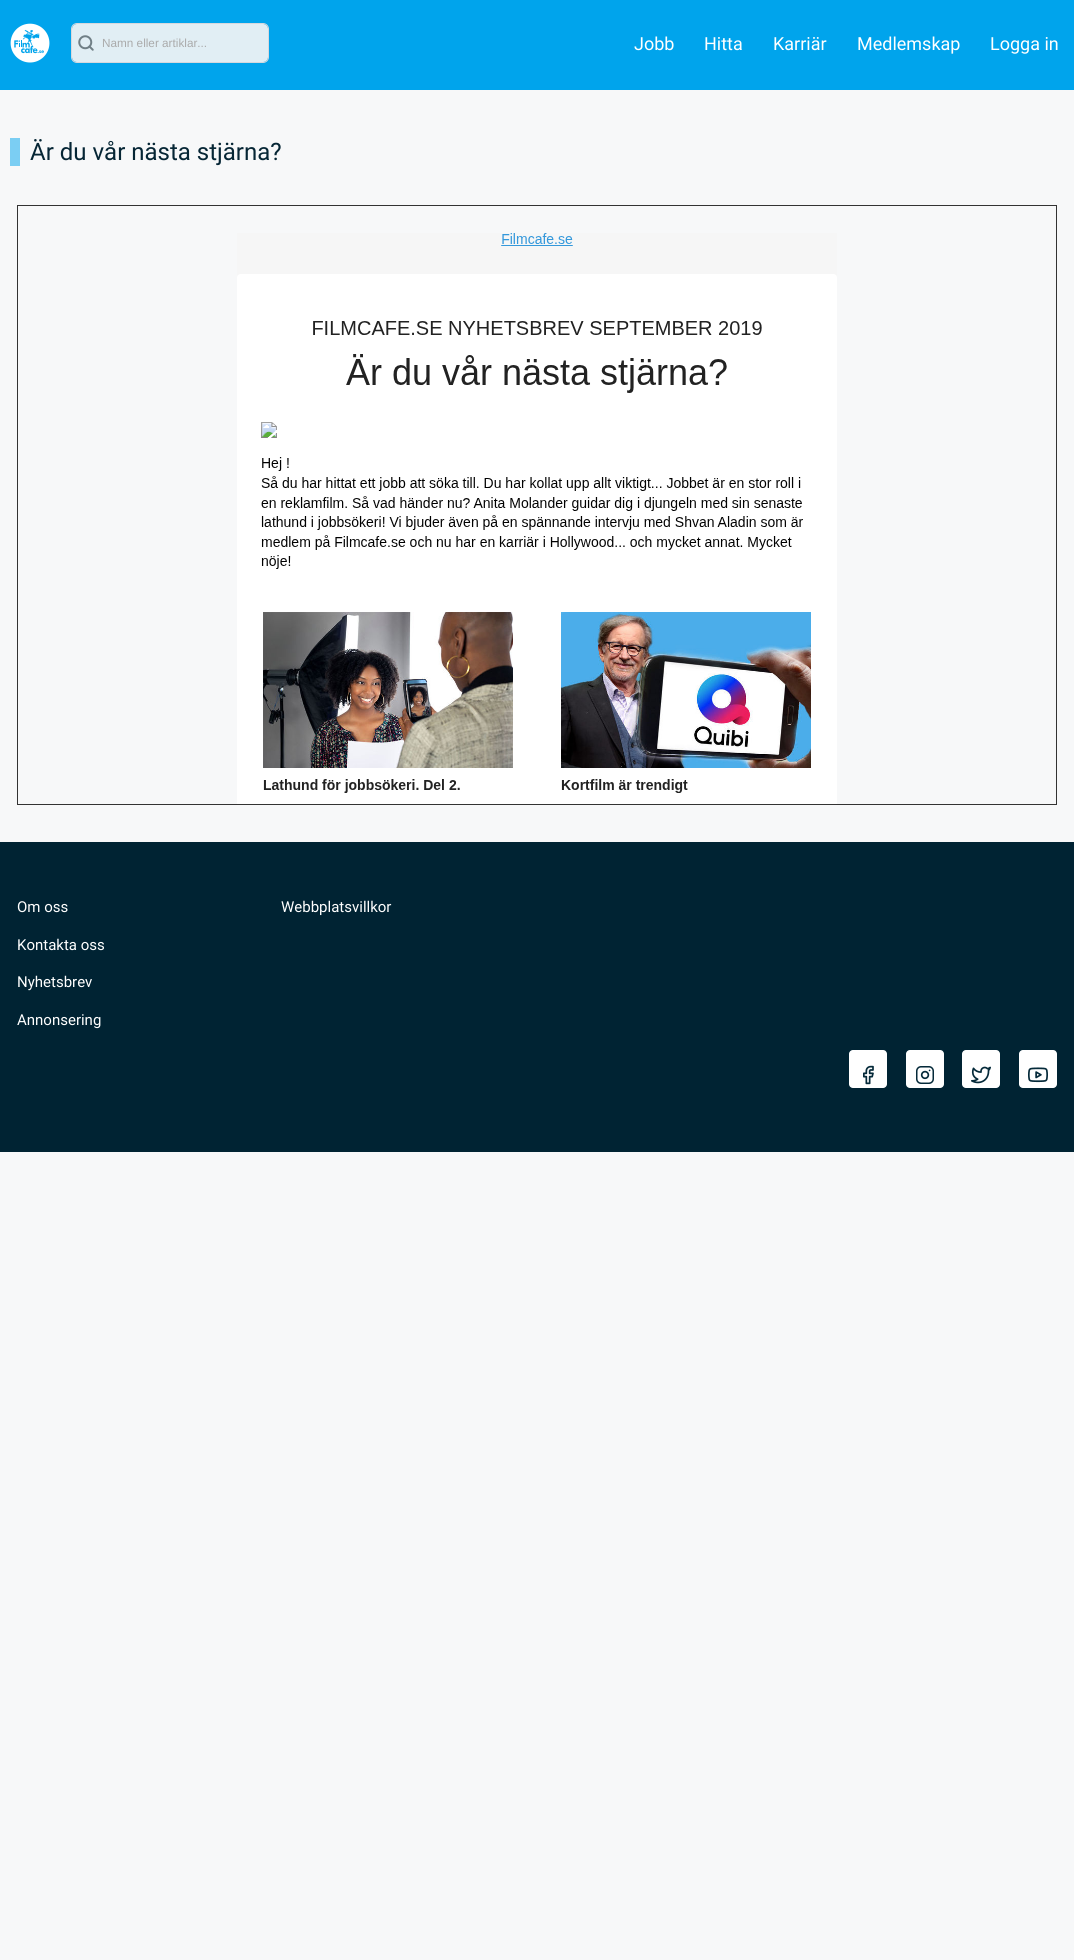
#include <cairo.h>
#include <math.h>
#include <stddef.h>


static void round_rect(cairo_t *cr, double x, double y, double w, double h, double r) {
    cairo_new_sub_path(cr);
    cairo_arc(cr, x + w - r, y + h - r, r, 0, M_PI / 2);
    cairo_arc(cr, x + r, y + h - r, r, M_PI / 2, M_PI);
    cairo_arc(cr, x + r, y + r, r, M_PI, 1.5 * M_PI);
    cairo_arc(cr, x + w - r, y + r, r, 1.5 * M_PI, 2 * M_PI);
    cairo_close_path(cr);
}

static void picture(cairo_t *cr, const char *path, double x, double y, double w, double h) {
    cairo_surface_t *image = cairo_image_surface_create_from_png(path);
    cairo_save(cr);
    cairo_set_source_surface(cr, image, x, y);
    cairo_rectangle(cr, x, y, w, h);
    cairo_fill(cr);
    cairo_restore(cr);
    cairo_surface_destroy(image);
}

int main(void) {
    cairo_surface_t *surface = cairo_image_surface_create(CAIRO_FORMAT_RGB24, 1074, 1960);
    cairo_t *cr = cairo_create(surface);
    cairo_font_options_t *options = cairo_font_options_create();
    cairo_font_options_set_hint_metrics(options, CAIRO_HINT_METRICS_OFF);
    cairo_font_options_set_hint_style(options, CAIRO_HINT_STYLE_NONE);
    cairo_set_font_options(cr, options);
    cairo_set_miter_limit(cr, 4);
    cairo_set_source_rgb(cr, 0.965, 0.969, 0.976);
    cairo_paint(cr);
    cairo_set_source_rgb(cr, 0, 0.643, 0.925);
    cairo_rectangle(cr, 0, 0, 1074, 90);
    cairo_fill(cr);
    picture(cr, "img1.png", 10, 23, 40, 40);
    cairo_set_source_rgb(cr, 0.882, 0.933, 0.957);
    round_rect(cr, 72, 24, 196, 38, 5);
    cairo_fill(cr);
    picture(cr, "img2.png", 78, 35, 16, 16);
    round_rect(cr, 71.5, 23.5, 197, 39, 5.5);
    cairo_set_source_rgb(cr, 0.843, 0.847, 0.867);
    cairo_set_line_width(cr, 1);
    cairo_stroke(cr);
    cairo_select_font_face(cr, "Liberation Sans", CAIRO_FONT_SLANT_NORMAL, CAIRO_FONT_WEIGHT_NORMAL);
    cairo_set_font_size(cr, 11.75);
    cairo_set_source_rgb(cr, 0.667, 0.667, 0.667);
    cairo_move_to(cr, 102, 47);
    cairo_show_text(cr, "Namn eller artiklar...");
    cairo_select_font_face(cr, "Roboto", CAIRO_FONT_SLANT_NORMAL, CAIRO_FONT_WEIGHT_NORMAL);
    cairo_set_font_size(cr, 18);
    cairo_set_source_rgb(cr, 1, 1, 1);
    cairo_move_to(cr, 634, 50);
    cairo_show_text(cr, "Jobb");
    cairo_move_to(cr, 704, 50);
    cairo_show_text(cr, "Hitta");
    cairo_move_to(cr, 773, 50);
    cairo_show_text(cr, "Karriär");
    cairo_move_to(cr, 857, 50);
    cairo_show_text(cr, "Medlemskap");
    cairo_move_to(cr, 990, 50);
    cairo_show_text(cr, "Logga in");
    cairo_set_source_rgb(cr, 0.482, 0.808, 0.953);
    cairo_rectangle(cr, 10, 138, 10, 28);
    cairo_fill(cr);
    cairo_set_font_size(cr, 24);
    cairo_set_source_rgb(cr, 0.024, 0.149, 0.208);
    cairo_move_to(cr, 30, 160);
    cairo_show_text(cr, "Är du vår nästa stjärna?");
    cairo_rectangle(cr, 17.5, 205.5, 1039, 599);
    cairo_set_source_rgb(cr, 0.2, 0.2, 0.2);
    cairo_stroke(cr);
    picture(cr, "img3.png", 237, 233, 600, 571);
    cairo_set_source_rgb(cr, 0, 0.137, 0.2);
    cairo_rectangle(cr, 0, 842, 1074, 310);
    cairo_fill(cr);
    cairo_set_font_size(cr, 15);
    cairo_set_source_rgb(cr, 1, 1, 1);
    cairo_move_to(cr, 17, 912);
    cairo_show_text(cr, "Om oss");
    cairo_move_to(cr, 17, 950);
    cairo_show_text(cr, "Kontakta oss");
    cairo_move_to(cr, 17, 987);
    cairo_show_text(cr, "Nyhetsbrev");
    cairo_move_to(cr, 17, 1025);
    cairo_show_text(cr, "Annonsering");
    cairo_move_to(cr, 281, 912);
    cairo_show_text(cr, "Webbplatsvillkor");
    round_rect(cr, 849, 1050, 38, 38, 4);
    cairo_fill(cr);
    picture(cr, "img4.png", 863, 1065, 11, 20);
    round_rect(cr, 906, 1050, 38, 38, 4);
    cairo_fill(cr);
    picture(cr, "img5.png", 916, 1066, 18, 18);
    round_rect(cr, 962, 1050, 38, 38, 4);
    cairo_fill(cr);
    picture(cr, "img6.png", 971, 1066, 20, 18);
    round_rect(cr, 1019, 1050, 38, 38, 4);
    cairo_fill(cr);
    picture(cr, "img7.png", 1028, 1067, 20, 16);
    cairo_surface_write_to_png(surface, "page.png");
    cairo_font_options_destroy(options);
    cairo_destroy(cr);
    cairo_surface_destroy(surface);
    return 0;
}
